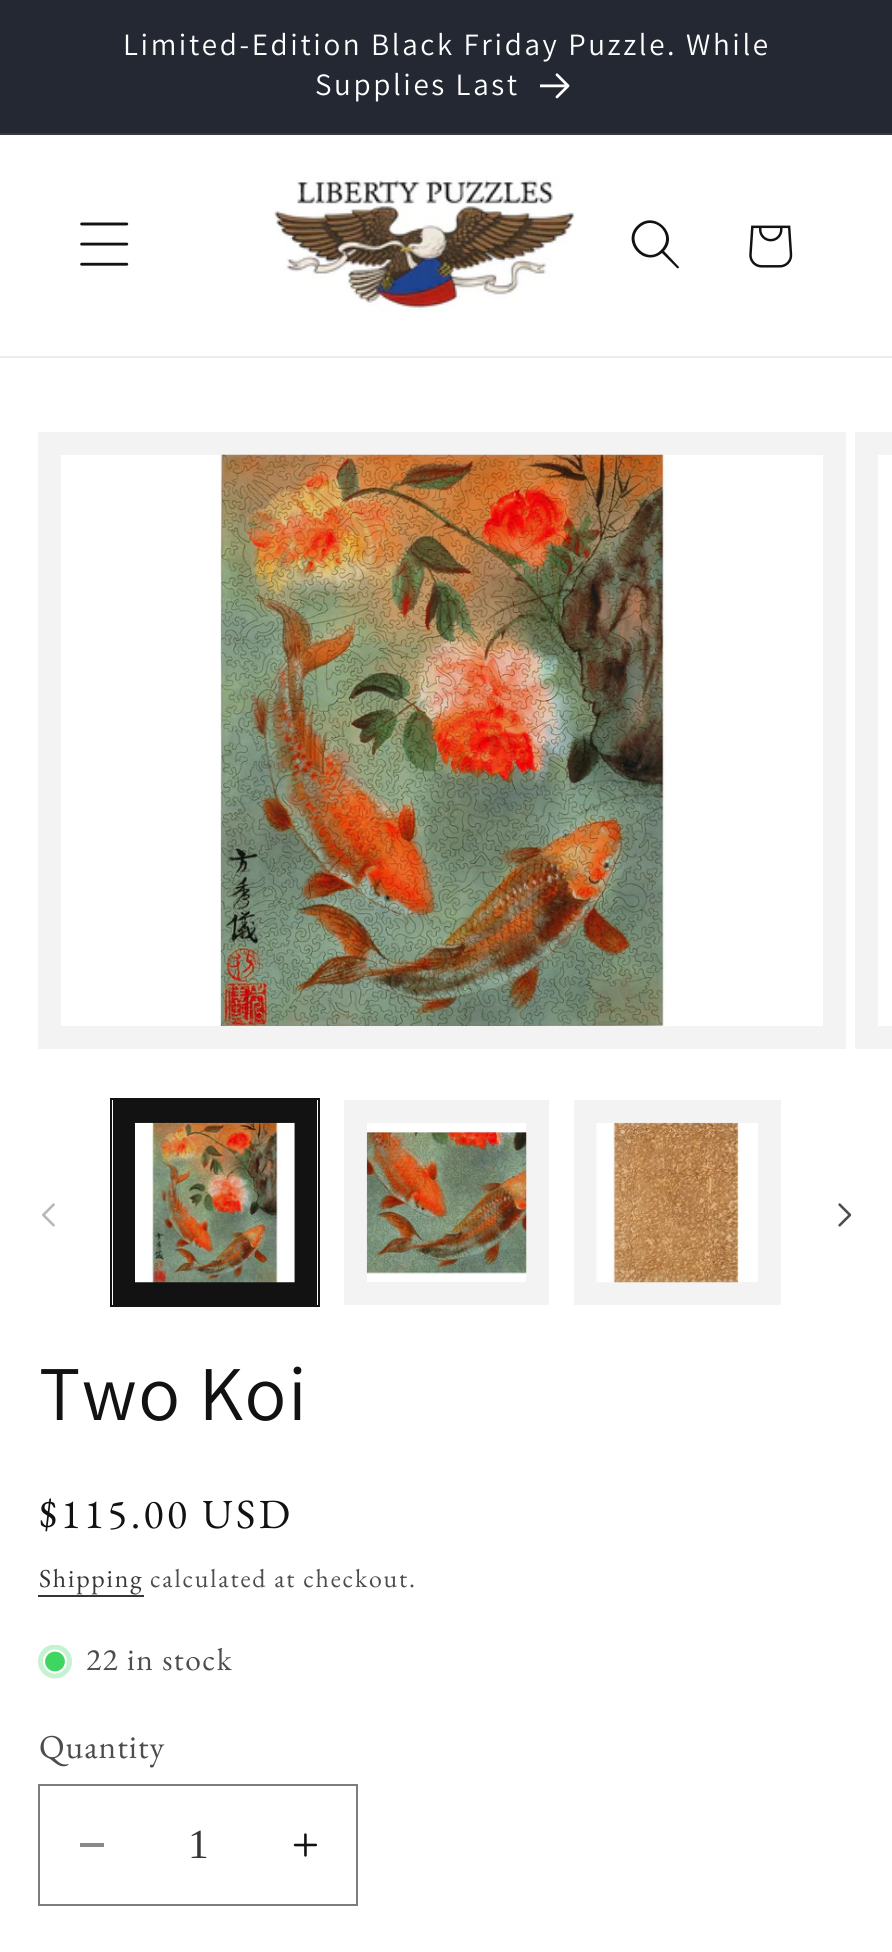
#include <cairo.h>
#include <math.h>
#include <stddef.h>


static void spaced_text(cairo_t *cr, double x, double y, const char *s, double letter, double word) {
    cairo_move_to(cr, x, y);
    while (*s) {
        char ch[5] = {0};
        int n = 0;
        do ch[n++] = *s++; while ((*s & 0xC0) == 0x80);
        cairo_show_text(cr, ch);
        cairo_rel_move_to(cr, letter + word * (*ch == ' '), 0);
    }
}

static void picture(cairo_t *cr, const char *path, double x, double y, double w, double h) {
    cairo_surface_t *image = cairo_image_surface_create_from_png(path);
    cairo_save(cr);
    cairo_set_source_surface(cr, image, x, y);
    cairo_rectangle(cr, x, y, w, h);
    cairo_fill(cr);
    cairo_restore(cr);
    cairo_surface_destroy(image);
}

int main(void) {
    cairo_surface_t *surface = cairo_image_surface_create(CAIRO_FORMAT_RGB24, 892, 1952);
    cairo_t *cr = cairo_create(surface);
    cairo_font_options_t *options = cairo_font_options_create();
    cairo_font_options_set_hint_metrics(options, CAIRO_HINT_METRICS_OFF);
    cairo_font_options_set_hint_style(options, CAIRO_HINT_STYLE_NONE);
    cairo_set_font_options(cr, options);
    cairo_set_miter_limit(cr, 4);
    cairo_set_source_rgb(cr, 1, 1, 1);
    cairo_paint(cr);
    cairo_set_source_rgb(cr, 0.141, 0.157, 0.2);
    cairo_rectangle(cr, 0, 0, 892, 133);
    cairo_fill(cr);
    cairo_set_source_rgb(cr, 0.212, 0.224, 0.263);
    cairo_rectangle(cr, 0, 133, 892, 2);
    cairo_fill(cr);
    cairo_select_font_face(cr, "Assistant", CAIRO_FONT_SLANT_NORMAL, CAIRO_FONT_WEIGHT_NORMAL);
    cairo_set_font_size(cr, 31.05);
    cairo_set_source_rgb(cr, 1, 1, 1);
    spaced_text(cr, 123, 55, "Limited-Edition Black Friday Puzzle. While", 2.6, 0);
    spaced_text(cr, 315, 95, "Supplies Last", 2.6, 0);
    picture(cr, "img1.png", 540, 73, 30, 26);
    cairo_set_source_rgb(cr, 0.925, 0.925, 0.925);
    cairo_rectangle(cr, 0, 356, 892, 2);
    cairo_fill(cr);
    picture(cr, "img2.png", 80, 222, 49, 44);
    picture(cr, "img3.png", 273, 175, 302, 138);
    cairo_set_source_rgb(cr, 0.071, 0.071, 0.071);
    cairo_set_fill_rule(cr, CAIRO_FILL_RULE_EVEN_ODD);
    cairo_new_path(cr);
    cairo_move_to(cr, 661, 250);
    cairo_curve_to(cr, 647, 265, 625, 242, 639, 228);
    cairo_curve_to(cr, 654, 213, 676, 235, 661, 250);
    cairo_move_to(cr, 662, 253);
    cairo_curve_to(cr, 644, 268, 621, 242, 637, 226);
    cairo_curve_to(cr, 654, 209, 680, 234, 664, 251);
    cairo_line_to(cr, 679, 267);
    cairo_curve_to(cr, 679, 268, 678, 269, 677, 268);
    cairo_close_path(cr);
    cairo_fill(cr);
    picture(cr, "img4.png", 749, 225, 44, 43);
    cairo_rectangle(cr, 49.5, 443.5, 785, 594);
    cairo_set_source_rgb(cr, 0.953, 0.953, 0.953);
    cairo_set_line_width(cr, 23);
    cairo_stroke(cr);
    picture(cr, "img5.png", 220, 454, 447, 572);
    cairo_rectangle(cr, 866.5, 443.5, 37, 594);
    cairo_stroke(cr);
    picture(cr, "img6.png", 42, 1203, 13, 24);
    cairo_rectangle(cr, 111, 1099, 208, 207);
    cairo_set_source_rgb(cr, 0.071, 0.071, 0.071);
    cairo_set_line_width(cr, 2);
    cairo_stroke(cr);
    cairo_rectangle(cr, 124.5, 1111.5, 181, 182);
    cairo_set_line_width(cr, 23);
    cairo_stroke(cr);
    picture(cr, "img7.png", 135, 1122, 160, 161);
    cairo_rectangle(cr, 355.5, 1111.5, 182, 182);
    cairo_set_source_rgb(cr, 0.953, 0.953, 0.953);
    cairo_stroke(cr);
    picture(cr, "img8.png", 366, 1130, 161, 145);
    cairo_rectangle(cr, 585.5, 1111.5, 184, 182);
    cairo_stroke(cr);
    picture(cr, "img9.png", 596, 1122, 146, 161);
    picture(cr, "img10.png", 838, 1203, 14, 24);
    cairo_set_font_size(cr, 77.5);
    cairo_set_source_rgb(cr, 0.071, 0.071, 0.071);
    spaced_text(cr, 39, 1420, "Two Koi", 1.5, 0);
    cairo_select_font_face(cr, "EB Garamond", CAIRO_FONT_SLANT_NORMAL, CAIRO_FONT_WEIGHT_NORMAL);
    cairo_set_font_size(cr, 41.5);
    spaced_text(cr, 39, 1528, "$115.00 USD", 3.4, 0);
    cairo_set_font_size(cr, 25.9);
    cairo_set_source_rgb(cr, 0.212, 0.212, 0.212);
    spaced_text(cr, 39, 1587, "Shipping", 1.8, 0);
    cairo_rectangle(cr, 38, 1595, 106, 2);
    cairo_fill(cr);
    cairo_set_source_rgb(cr, 0.302, 0.302, 0.302);
    spaced_text(cr, 150, 1587, "calculated at checkout.", 1.8, 0);
    cairo_save(cr);
    cairo_set_fill_rule(cr, CAIRO_FILL_RULE_WINDING);
    cairo_rectangle(cr, 38, 1645, 34, 34);
    cairo_clip(cr);
    cairo_set_source_rgb(cr, 0.773, 0.953, 0.812);
    cairo_arc(cr, 55, 1661.5, 17, 0, 2 * M_PI);
    cairo_fill(cr);
    cairo_restore(cr);
    cairo_set_source_rgb(cr, 0.243, 0.839, 0.376);
    cairo_arc(cr, 55, 1661.5, 11, 0, 2 * M_PI);
    cairo_fill_preserve(cr);
    cairo_set_source_rgb(cr, 1, 1, 1);
    cairo_set_line_width(cr, 2.2);
    cairo_stroke(cr);
    cairo_set_font_size(cr, 31.5);
    cairo_set_source_rgb(cr, 0.302, 0.302, 0.302);
    spaced_text(cr, 86, 1670, "22 in stock", 1.5, 0);
    cairo_set_font_size(cr, 33.5);
    spaced_text(cr, 39, 1758, "Quantity", 1, 0);
    cairo_set_source_rgb(cr, 0.537, 0.537, 0.537);
    cairo_rectangle(cr, 80, 1843, 24, 4);
    cairo_fill(cr);
    picture(cr, "img11.png", 293, 1833, 25, 24);
    cairo_rectangle(cr, 39, 1785, 318, 120);
    cairo_set_source_rgb(cr, 0.49, 0.49, 0.49);
    cairo_set_line_width(cr, 2);
    cairo_stroke(cr);
    cairo_select_font_face(cr, "Liberation Serif", CAIRO_FONT_SLANT_NORMAL, CAIRO_FONT_WEIGHT_NORMAL);
    cairo_set_font_size(cr, 41.5);
    cairo_set_source_rgb(cr, 0.212, 0.212, 0.212);
    cairo_move_to(cr, 188, 1858);
    cairo_show_text(cr, "1");
    cairo_surface_write_to_png(surface, "page.png");
    cairo_font_options_destroy(options);
    cairo_destroy(cr);
    cairo_surface_destroy(surface);
    return 0;
}
